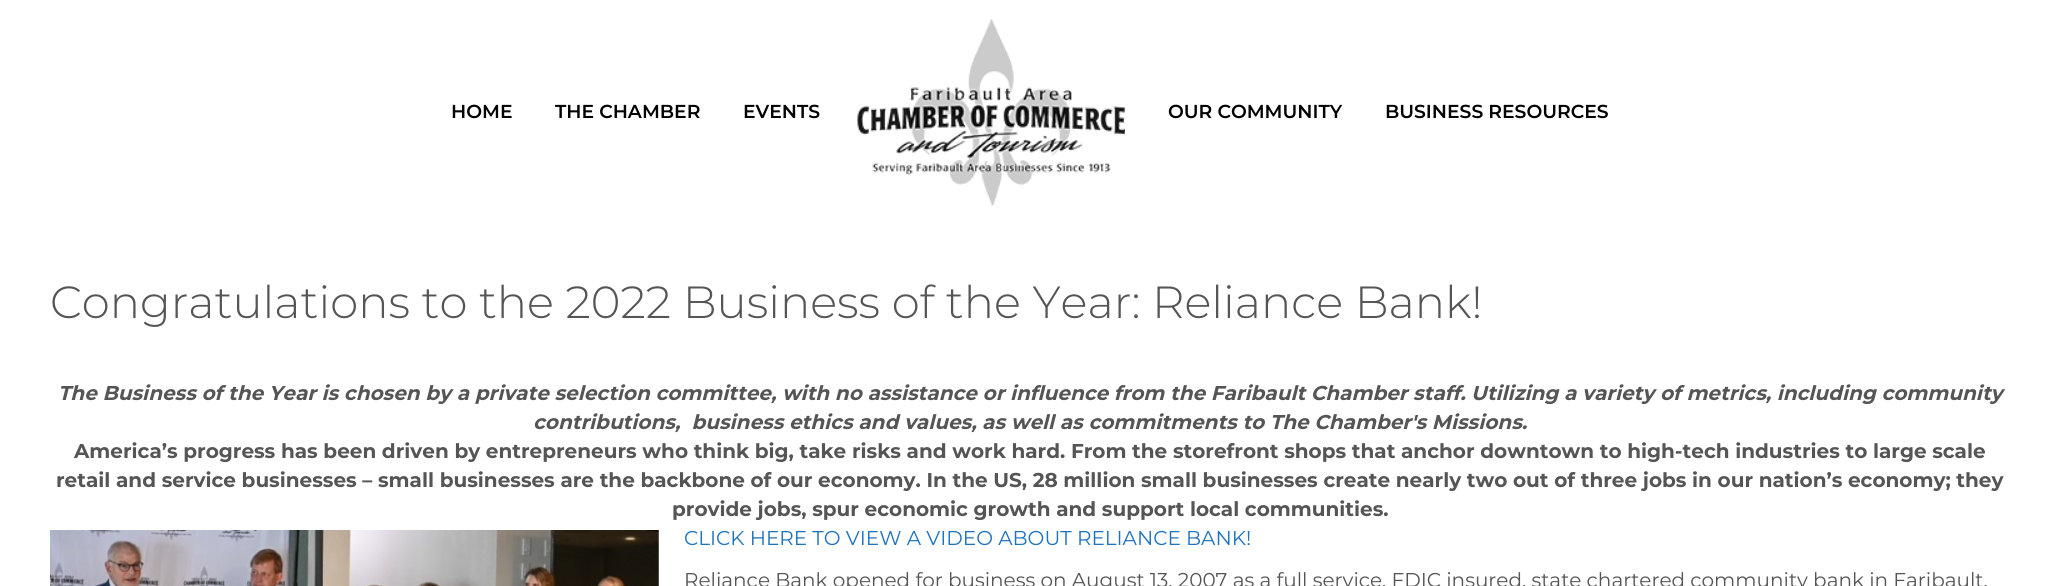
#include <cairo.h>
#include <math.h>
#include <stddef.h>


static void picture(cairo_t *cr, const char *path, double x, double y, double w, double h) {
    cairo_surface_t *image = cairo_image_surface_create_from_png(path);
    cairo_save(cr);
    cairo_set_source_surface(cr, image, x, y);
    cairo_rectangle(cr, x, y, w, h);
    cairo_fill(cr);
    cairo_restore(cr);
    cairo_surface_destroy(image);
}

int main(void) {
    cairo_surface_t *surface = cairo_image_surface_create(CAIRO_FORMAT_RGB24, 2059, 586);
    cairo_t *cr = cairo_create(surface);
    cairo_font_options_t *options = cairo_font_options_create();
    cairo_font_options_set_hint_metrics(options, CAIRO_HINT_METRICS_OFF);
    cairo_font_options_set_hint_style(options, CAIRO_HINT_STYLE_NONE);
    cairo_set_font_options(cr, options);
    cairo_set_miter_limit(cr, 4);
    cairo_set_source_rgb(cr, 1, 1, 1);
    cairo_paint(cr);
    cairo_select_font_face(cr, "Montserrat SemiBold", CAIRO_FONT_SLANT_NORMAL, CAIRO_FONT_WEIGHT_NORMAL);
    cairo_set_font_size(cr, 18.75);
    cairo_set_source_rgb(cr, 0, 0, 0);
    cairo_move_to(cr, 451, 118);
    cairo_show_text(cr, "HOME");
    cairo_move_to(cr, 555, 118);
    cairo_show_text(cr, "THE CHAMBER");
    cairo_move_to(cr, 743, 118);
    cairo_show_text(cr, "EVENTS");
    picture(cr, "img1.png", 857, 18, 268, 188);
    cairo_move_to(cr, 1168, 118);
    cairo_show_text(cr, "OUR COMMUNITY");
    cairo_move_to(cr, 1385, 118);
    cairo_show_text(cr, "BUSINESS RESOURCES");
    cairo_select_font_face(cr, "Montserrat Light", CAIRO_FONT_SLANT_NORMAL, CAIRO_FONT_WEIGHT_NORMAL);
    cairo_set_font_size(cr, 45);
    cairo_set_source_rgb(cr, 0.333, 0.333, 0.333);
    cairo_move_to(cr, 50, 318);
    cairo_show_text(cr, "Congratulations to the 2022 Business of the Year: Reliance Bank!");
    cairo_select_font_face(cr, "Montserrat", CAIRO_FONT_SLANT_ITALIC, CAIRO_FONT_WEIGHT_BOLD);
    cairo_set_font_size(cr, 20);
    cairo_move_to(cr, 58, 400);
    cairo_show_text(cr, "The Business of the Year is chosen by a private selection committee, with no assistance or influence from the Faribault Chamber staff. Utilizing a variety of metrics, including community");
    cairo_move_to(cr, 533, 429);
    cairo_show_text(cr, "contributions,  business ethics and values, as well as commitments to The Chamber's Missions.");
    cairo_select_font_face(cr, "Montserrat", CAIRO_FONT_SLANT_NORMAL, CAIRO_FONT_WEIGHT_BOLD);
    cairo_move_to(cr, 74, 458);
    cairo_show_text(cr, "America’s progress has been driven by entrepreneurs who think big, take risks and work hard. From the storefront shops that anchor downtown to high-tech industries to large scale");
    cairo_move_to(cr, 56, 487);
    cairo_show_text(cr, "retail and service businesses – small businesses are the backbone of our economy. In the US, 28 million small businesses create nearly two out of three jobs in our nation’s economy; they");
    cairo_move_to(cr, 672, 516);
    cairo_show_text(cr, "provide jobs, spur economic growth and support local communities.");
    picture(cr, "img2.png", 50, 530, 609, 56);
    cairo_select_font_face(cr, "Montserrat", CAIRO_FONT_SLANT_NORMAL, CAIRO_FONT_WEIGHT_NORMAL);
    cairo_set_source_rgb(cr, 0.118, 0.451, 0.745);
    cairo_move_to(cr, 684, 545);
    cairo_show_text(cr, "CLICK HERE TO VIEW A VIDEO ABOUT RELIANCE BANK!");
    cairo_set_source_rgb(cr, 0.333, 0.333, 0.333);
    cairo_move_to(cr, 684, 587);
    cairo_show_text(cr, "Reliance Bank opened for business on August 13, 2007 as a full service, FDIC insured, state chartered community bank in Faribault.");
    cairo_surface_write_to_png(surface, "page.png");
    cairo_font_options_destroy(options);
    cairo_destroy(cr);
    cairo_surface_destroy(surface);
    return 0;
}
